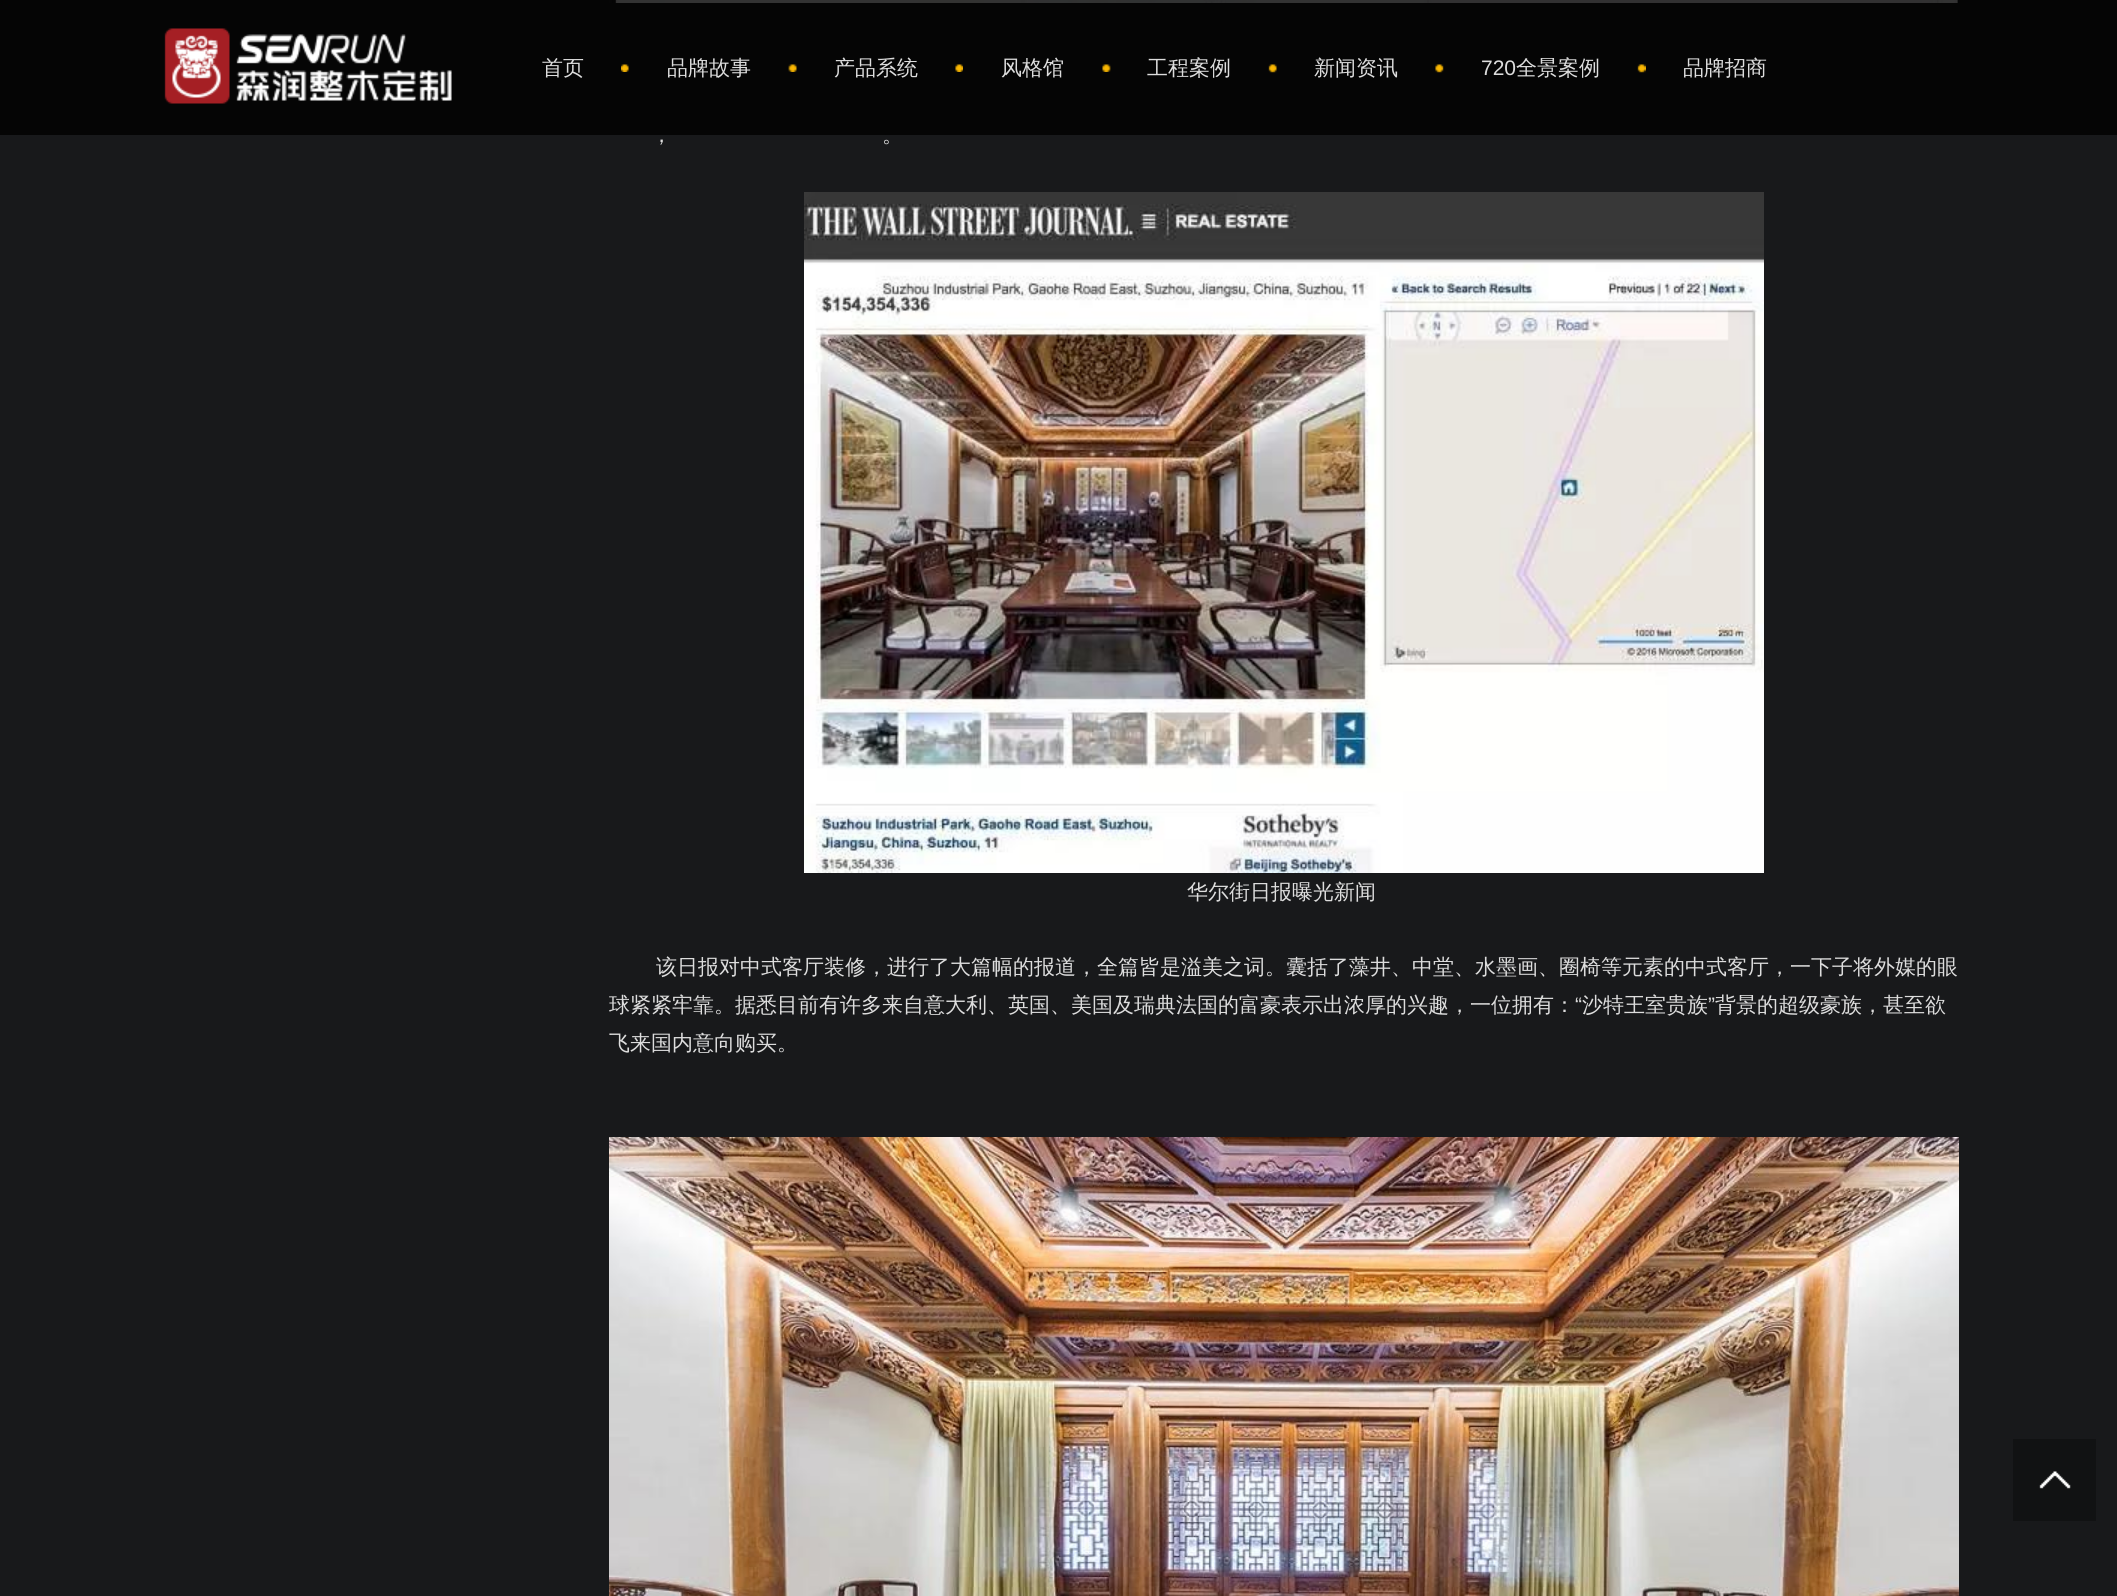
#include <cairo.h>
#include <math.h>
#include <stddef.h>


static void picture(cairo_t *cr, const char *path, double x, double y, double w, double h) {
    cairo_surface_t *image = cairo_image_surface_create_from_png(path);
    cairo_save(cr);
    cairo_set_source_surface(cr, image, x, y);
    cairo_rectangle(cr, x, y, w, h);
    cairo_fill(cr);
    cairo_restore(cr);
    cairo_surface_destroy(image);
}

int main(void) {
    cairo_surface_t *surface = cairo_image_surface_create(CAIRO_FORMAT_RGB24, 2117, 1596);
    cairo_t *cr = cairo_create(surface);
    cairo_font_options_t *options = cairo_font_options_create();
    cairo_font_options_set_hint_metrics(options, CAIRO_HINT_METRICS_OFF);
    cairo_font_options_set_hint_style(options, CAIRO_HINT_STYLE_NONE);
    cairo_set_font_options(cr, options);
    cairo_set_miter_limit(cr, 4);
    cairo_set_source_rgb(cr, 0.094, 0.098, 0.106);
    cairo_paint(cr);
    picture(cr, "img9.png", 609, 0, 1350, 3);
    cairo_set_source_rgba(cr, 0, 0, 0, 0.8);
    cairo_rectangle(cr, 0, 0, 2117, 135);
    cairo_fill(cr);
    picture(cr, "img1.png", 164, 28, 288, 76);
    picture(cr, "img2.png", 621, 64, 8, 8);
    cairo_select_font_face(cr, "WenQuanYi Zen Hei Medium", CAIRO_FONT_SLANT_NORMAL, CAIRO_FONT_WEIGHT_NORMAL);
    cairo_set_font_size(cr, 21);
    cairo_set_source_rgb(cr, 0.867, 0.867, 0.867);
    cairo_move_to(cr, 542, 75);
    cairo_show_text(cr, "首页");
    picture(cr, "img3.png", 788, 64, 9, 8);
    cairo_move_to(cr, 667, 75);
    cairo_show_text(cr, "品牌故事");
    picture(cr, "img4.png", 955, 64, 8, 8);
    cairo_move_to(cr, 834, 75);
    cairo_show_text(cr, "产品系统");
    picture(cr, "img5.png", 1102, 64, 9, 8);
    cairo_move_to(cr, 1001, 75);
    cairo_show_text(cr, "风格馆");
    picture(cr, "img6.png", 1268, 64, 9, 9);
    cairo_move_to(cr, 1147, 75);
    cairo_show_text(cr, "工程案例");
    picture(cr, "img7.png", 1435, 64, 9, 9);
    cairo_move_to(cr, 1314, 75);
    cairo_show_text(cr, "新闻资讯");
    picture(cr, "img8.png", 1637, 64, 9, 9);
    cairo_select_font_face(cr, "Liberation Sans", CAIRO_FONT_SLANT_NORMAL, CAIRO_FONT_WEIGHT_NORMAL);
    cairo_move_to(cr, 1481, 75);
    cairo_show_text(cr, "720");
    cairo_select_font_face(cr, "WenQuanYi Zen Hei Medium", CAIRO_FONT_SLANT_NORMAL, CAIRO_FONT_WEIGHT_NORMAL);
    cairo_move_to(cr, 1516, 75);
    cairo_show_text(cr, "全景案例");
    cairo_move_to(cr, 1683, 75);
    cairo_show_text(cr, "品牌招商");
    cairo_move_to(cr, 651, 142);
    cairo_show_text(cr, "，");
    cairo_move_to(cr, 882, 142);
    cairo_show_text(cr, "。");
    picture(cr, "img10.png", 804, 192, 960, 681);
    cairo_move_to(cr, 1187, 899);
    cairo_show_text(cr, "华尔街日报曝光新闻");
    cairo_move_to(cr, 656, 974);
    cairo_show_text(cr, "该日报对中式客厅装修，进行了大篇幅的报道，全篇皆是溢美之词。囊括了藻井、中堂、水墨画、圈椅等元素的中式客厅，一下子将外媒的眼");
    cairo_move_to(cr, 609, 1012);
    cairo_show_text(cr, "球紧紧牢靠。据悉目前有许多来自意大利、英国、美国及瑞典法国的富豪表示出浓厚的兴趣，一位拥有：");
    cairo_select_font_face(cr, "Liberation Sans", CAIRO_FONT_SLANT_NORMAL, CAIRO_FONT_WEIGHT_NORMAL);
    cairo_move_to(cr, 1575, 1012);
    cairo_show_text(cr, "“");
    cairo_select_font_face(cr, "WenQuanYi Zen Hei Medium", CAIRO_FONT_SLANT_NORMAL, CAIRO_FONT_WEIGHT_NORMAL);
    cairo_move_to(cr, 1582, 1012);
    cairo_show_text(cr, "沙特王室贵族");
    cairo_select_font_face(cr, "Liberation Sans", CAIRO_FONT_SLANT_NORMAL, CAIRO_FONT_WEIGHT_NORMAL);
    cairo_move_to(cr, 1708, 1012);
    cairo_show_text(cr, "”");
    cairo_select_font_face(cr, "WenQuanYi Zen Hei Medium", CAIRO_FONT_SLANT_NORMAL, CAIRO_FONT_WEIGHT_NORMAL);
    cairo_move_to(cr, 1715, 1012);
    cairo_show_text(cr, "背景的超级豪族，甚至欲");
    cairo_move_to(cr, 609, 1050);
    cairo_show_text(cr, "飞来国内意向购买。");
    picture(cr, "img11.png", 609, 1137, 1350, 459);
    cairo_set_source_rgb(cr, 0.067, 0.071, 0.075);
    cairo_rectangle(cr, 2013, 1439, 83, 82);
    cairo_fill(cr);
    picture(cr, "img12.png", 2039, 1471, 32, 18);
    cairo_surface_write_to_png(surface, "page.png");
    cairo_font_options_destroy(options);
    cairo_destroy(cr);
    cairo_surface_destroy(surface);
    return 0;
}
